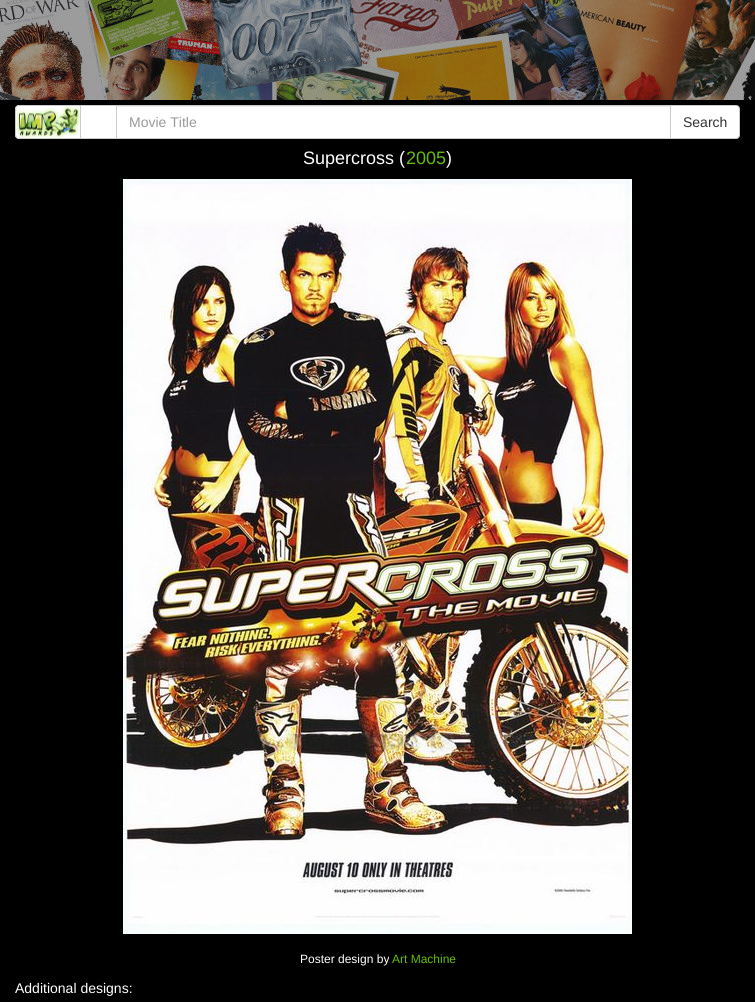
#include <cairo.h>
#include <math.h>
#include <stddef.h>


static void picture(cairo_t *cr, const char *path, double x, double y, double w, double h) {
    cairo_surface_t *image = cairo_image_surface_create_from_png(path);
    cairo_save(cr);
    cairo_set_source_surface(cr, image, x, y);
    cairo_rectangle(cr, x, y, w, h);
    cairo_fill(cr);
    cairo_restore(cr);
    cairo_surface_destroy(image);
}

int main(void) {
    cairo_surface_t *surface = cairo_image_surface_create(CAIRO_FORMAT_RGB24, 755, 1002);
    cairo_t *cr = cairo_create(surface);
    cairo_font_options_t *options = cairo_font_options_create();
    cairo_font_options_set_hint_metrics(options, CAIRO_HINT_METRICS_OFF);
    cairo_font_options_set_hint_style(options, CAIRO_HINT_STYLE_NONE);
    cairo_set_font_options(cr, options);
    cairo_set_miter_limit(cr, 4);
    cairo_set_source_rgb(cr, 0, 0, 0);
    cairo_paint(cr);
    picture(cr, "img1.png", 0, 0, 755, 100);
    cairo_set_source_rgb(cr, 1, 1, 1);
    cairo_new_path(cr);
    cairo_move_to(cr, 19, 105);
    cairo_line_to(cr, 82, 105);
    cairo_line_to(cr, 82, 139);
    cairo_line_to(cr, 19, 139);
    cairo_curve_to(cr, 17, 139, 15, 137, 15, 135);
    cairo_line_to(cr, 15, 109);
    cairo_curve_to(cr, 15, 107, 17, 105, 19, 105);
    cairo_close_path(cr);
    cairo_fill(cr);
    picture(cr, "img2.png", 16, 106, 64, 32);
    cairo_new_path(cr);
    cairo_move_to(cr, 19, 105.5);
    cairo_line_to(cr, 81.5, 105.5);
    cairo_line_to(cr, 81.5, 138.5);
    cairo_line_to(cr, 19, 138.5);
    cairo_curve_to(cr, 17, 138.5, 15.5, 137, 15.5, 135);
    cairo_line_to(cr, 15.5, 109);
    cairo_curve_to(cr, 15.5, 107, 17, 105.5, 19, 105.5);
    cairo_close_path(cr);
    cairo_set_source_rgb(cr, 0.8, 0.8, 0.8);
    cairo_set_line_width(cr, 1);
    cairo_stroke(cr);
    cairo_set_source_rgb(cr, 1, 1, 1);
    cairo_rectangle(cr, 80.5, 105.5, 36, 33);
    cairo_fill_preserve(cr);
    cairo_set_source_rgb(cr, 0.8, 0.8, 0.8);
    cairo_stroke(cr);
    cairo_set_source_rgb(cr, 1, 1, 1);
    cairo_rectangle(cr, 117, 107, 553, 31);
    cairo_fill(cr);
    cairo_set_source_rgb(cr, 0.925, 0.925, 0.925);
    cairo_rectangle(cr, 117, 106, 553, 1);
    cairo_fill(cr);
    cairo_rectangle(cr, 116.5, 105.5, 554, 33);
    cairo_set_source_rgb(cr, 0.8, 0.8, 0.8);
    cairo_stroke(cr);
    cairo_select_font_face(cr, "Liberation Sans", CAIRO_FONT_SLANT_NORMAL, CAIRO_FONT_WEIGHT_NORMAL);
    cairo_set_font_size(cr, 14);
    cairo_set_source_rgb(cr, 0.6, 0.6, 0.6);
    cairo_move_to(cr, 129, 127);
    cairo_show_text(cr, "Movie Title");
    cairo_set_source_rgb(cr, 1, 1, 1);
    cairo_new_path(cr);
    cairo_move_to(cr, 670.5, 105.5);
    cairo_line_to(cr, 736, 105.5);
    cairo_curve_to(cr, 738, 105.5, 739.5, 107, 739.5, 109);
    cairo_line_to(cr, 739.5, 135);
    cairo_curve_to(cr, 739.5, 137, 738, 138.5, 736, 138.5);
    cairo_line_to(cr, 670.5, 138.5);
    cairo_close_path(cr);
    cairo_fill_preserve(cr);
    cairo_set_source_rgb(cr, 0.8, 0.8, 0.8);
    cairo_stroke(cr);
    cairo_set_source_rgb(cr, 0.2, 0.2, 0.2);
    cairo_move_to(cr, 683, 127);
    cairo_show_text(cr, "Search");
    cairo_set_font_size(cr, 18);
    cairo_set_source_rgb(cr, 1, 1, 1);
    cairo_move_to(cr, 303, 164);
    cairo_show_text(cr, "Supercross (");
    cairo_set_source_rgb(cr, 0.4, 0.741, 0.016);
    cairo_move_to(cr, 406, 164);
    cairo_show_text(cr, "2005");
    cairo_set_source_rgb(cr, 1, 1, 1);
    cairo_move_to(cr, 446, 164);
    cairo_show_text(cr, ")");
    picture(cr, "img3.png", 123, 179, 509, 755);
    cairo_set_font_size(cr, 12);
    cairo_move_to(cr, 300, 963);
    cairo_show_text(cr, "Poster design by");
    cairo_set_source_rgb(cr, 0.4, 0.741, 0.016);
    cairo_move_to(cr, 392, 963);
    cairo_show_text(cr, "Art Machine");
    cairo_set_font_size(cr, 14);
    cairo_set_source_rgb(cr, 1, 1, 1);
    cairo_move_to(cr, 15, 993);
    cairo_show_text(cr, "Additional designs:");
    cairo_surface_write_to_png(surface, "page.png");
    cairo_font_options_destroy(options);
    cairo_destroy(cr);
    cairo_surface_destroy(surface);
    return 0;
}
